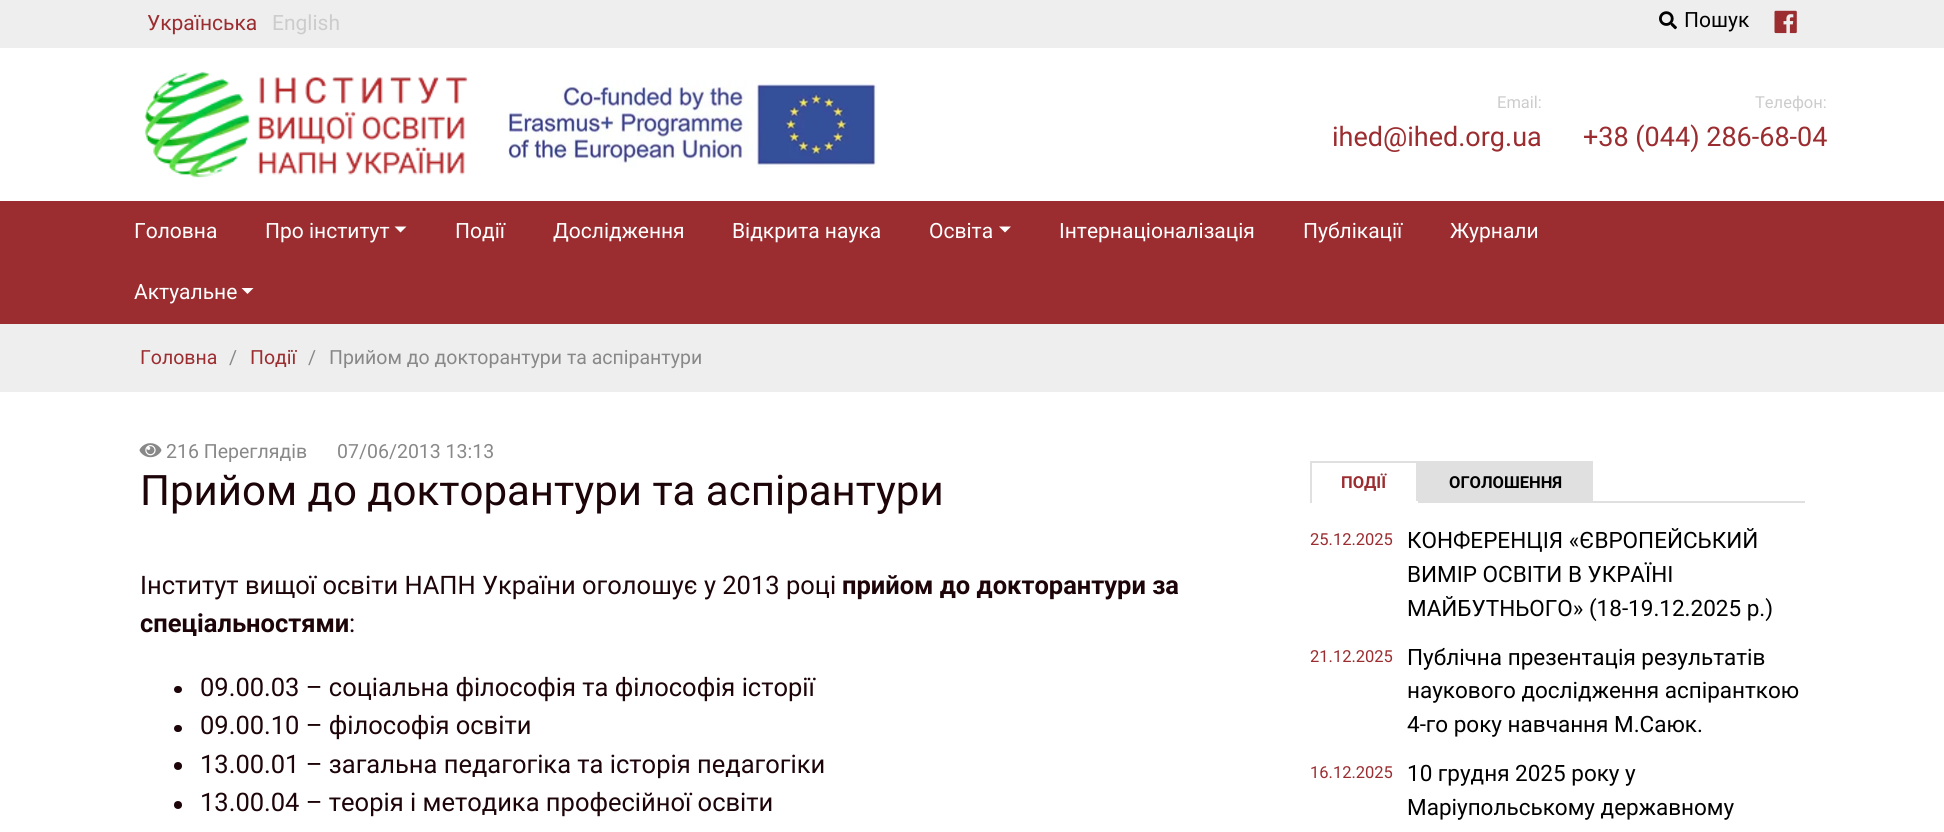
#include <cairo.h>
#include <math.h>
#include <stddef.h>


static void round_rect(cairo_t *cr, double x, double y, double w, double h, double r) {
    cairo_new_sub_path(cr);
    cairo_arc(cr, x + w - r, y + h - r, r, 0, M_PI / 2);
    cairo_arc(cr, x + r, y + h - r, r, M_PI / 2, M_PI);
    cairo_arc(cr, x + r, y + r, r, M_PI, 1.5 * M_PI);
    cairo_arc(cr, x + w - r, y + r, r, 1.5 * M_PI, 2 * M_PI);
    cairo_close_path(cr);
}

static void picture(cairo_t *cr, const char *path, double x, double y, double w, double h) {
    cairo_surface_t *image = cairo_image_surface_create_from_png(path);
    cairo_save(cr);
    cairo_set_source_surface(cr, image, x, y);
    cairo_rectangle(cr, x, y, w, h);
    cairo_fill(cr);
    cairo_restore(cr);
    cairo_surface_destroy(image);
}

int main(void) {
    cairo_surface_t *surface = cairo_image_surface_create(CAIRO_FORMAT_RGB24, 1944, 832);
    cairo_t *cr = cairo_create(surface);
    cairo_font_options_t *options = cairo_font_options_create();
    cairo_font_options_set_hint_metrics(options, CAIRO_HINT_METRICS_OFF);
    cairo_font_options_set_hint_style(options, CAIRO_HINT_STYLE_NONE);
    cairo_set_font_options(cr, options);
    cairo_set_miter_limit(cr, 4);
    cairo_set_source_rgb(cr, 1, 1, 1);
    cairo_paint(cr);
    cairo_set_source_rgb(cr, 0.933, 0.933, 0.933);
    cairo_rectangle(cr, 0, 0, 1944, 48);
    cairo_fill(cr);
    cairo_select_font_face(cr, "Roboto", CAIRO_FONT_SLANT_NORMAL, CAIRO_FONT_WEIGHT_NORMAL);
    cairo_set_font_size(cr, 21);
    cairo_set_source_rgb(cr, 0.608, 0.176, 0.188);
    cairo_move_to(cr, 147, 30);
    cairo_show_text(cr, "Українська");
    cairo_set_source_rgb(cr, 0.8, 0.8, 0.8);
    cairo_move_to(cr, 272, 30);
    cairo_show_text(cr, "English");
    picture(cr, "img1.png", 1659, 11, 18, 19);
    cairo_set_source_rgb(cr, 0, 0, 0);
    cairo_move_to(cr, 1684, 27);
    cairo_show_text(cr, "Пошук");
    picture(cr, "img2.png", 1774, 10, 23, 24);
    picture(cr, "img3.png", 144, 71, 324, 107);
    picture(cr, "img4.png", 508, 80, 369, 88);
    cairo_set_font_size(cr, 16.5);
    cairo_set_source_rgb(cr, 0.8, 0.8, 0.8);
    cairo_move_to(cr, 1497, 108);
    cairo_show_text(cr, "Email:");
    cairo_set_font_size(cr, 27);
    cairo_set_source_rgb(cr, 0.608, 0.176, 0.188);
    cairo_move_to(cr, 1332, 146);
    cairo_show_text(cr, "ihed@ihed.org.ua");
    cairo_set_font_size(cr, 16.5);
    cairo_set_source_rgb(cr, 0.8, 0.8, 0.8);
    cairo_move_to(cr, 1755, 108);
    cairo_show_text(cr, "Телефон:");
    cairo_set_font_size(cr, 27);
    cairo_set_source_rgb(cr, 0.608, 0.176, 0.188);
    cairo_move_to(cr, 1583, 146);
    cairo_show_text(cr, "+38 (044) 286-68-04");
    cairo_rectangle(cr, 0, 201, 1944, 123);
    cairo_fill(cr);
    cairo_set_font_size(cr, 21);
    cairo_set_source_rgb(cr, 1, 1, 1);
    cairo_move_to(cr, 134, 238);
    cairo_show_text(cr, "Головна");
    cairo_move_to(cr, 265, 238);
    cairo_show_text(cr, "Про інститут");
    cairo_new_path(cr);
    cairo_move_to(cr, 394.5, 226.5);
    cairo_line_to(cr, 406.5, 226.5);
    cairo_line_to(cr, 400.5, 232.5);
    cairo_close_path(cr);
    cairo_fill(cr);
    cairo_move_to(cr, 455, 238);
    cairo_show_text(cr, "Події");
    cairo_move_to(cr, 553, 238);
    cairo_show_text(cr, "Дослідження");
    cairo_move_to(cr, 732, 238);
    cairo_show_text(cr, "Відкрита наука");
    cairo_move_to(cr, 929, 238);
    cairo_show_text(cr, "Освіта");
    cairo_new_path(cr);
    cairo_move_to(cr, 999, 226.5);
    cairo_line_to(cr, 1011, 226.5);
    cairo_line_to(cr, 1005, 232.5);
    cairo_close_path(cr);
    cairo_fill(cr);
    cairo_move_to(cr, 1059, 238);
    cairo_show_text(cr, "Інтернаціоналізація");
    cairo_move_to(cr, 1303, 238);
    cairo_show_text(cr, "Публікації");
    cairo_move_to(cr, 1450, 238);
    cairo_show_text(cr, "Журнали");
    cairo_move_to(cr, 134, 299);
    cairo_show_text(cr, "Актуальне");
    cairo_new_path(cr);
    cairo_move_to(cr, 241.5, 288);
    cairo_line_to(cr, 253.5, 288);
    cairo_line_to(cr, 247.5, 294);
    cairo_close_path(cr);
    cairo_fill(cr);
    cairo_set_source_rgb(cr, 0.933, 0.933, 0.933);
    cairo_rectangle(cr, 0, 324, 1944, 68);
    cairo_fill(cr);
    cairo_set_font_size(cr, 19.5);
    cairo_set_source_rgb(cr, 0.608, 0.176, 0.188);
    cairo_move_to(cr, 140, 364);
    cairo_show_text(cr, "Головна");
    cairo_set_source_rgb(cr, 0.533, 0.533, 0.533);
    cairo_move_to(cr, 229, 364);
    cairo_show_text(cr, "/");
    cairo_set_source_rgb(cr, 0.608, 0.176, 0.188);
    cairo_move_to(cr, 250, 364);
    cairo_show_text(cr, "Події");
    cairo_set_source_rgb(cr, 0.533, 0.533, 0.533);
    cairo_move_to(cr, 308, 364);
    cairo_show_text(cr, "/");
    cairo_move_to(cr, 329, 364);
    cairo_show_text(cr, "Прийом до докторантури та аспірантури");
    picture(cr, "img5.png", 139, 443, 23, 15);
    cairo_move_to(cr, 166, 458);
    cairo_show_text(cr, "216 Переглядів");
    cairo_move_to(cr, 337, 458);
    cairo_show_text(cr, "07/06/2013 13:13");
    cairo_set_font_size(cr, 42);
    cairo_set_source_rgb(cr, 0.11, 0.016, 0.039);
    cairo_move_to(cr, 140, 505);
    cairo_show_text(cr, "Прийом до докторантури та аспірантури");
    cairo_set_font_size(cr, 25.5);
    cairo_move_to(cr, 140, 594);
    cairo_show_text(cr, "Інститут вищої освіти НАПН України оголошує у 2013 році");
    cairo_select_font_face(cr, "Roboto", CAIRO_FONT_SLANT_NORMAL, CAIRO_FONT_WEIGHT_BOLD);
    cairo_move_to(cr, 842, 594);
    cairo_show_text(cr, "прийом до докторантури за");
    cairo_move_to(cr, 140, 632);
    cairo_show_text(cr, "спеціальностями");
    cairo_select_font_face(cr, "Roboto", CAIRO_FONT_SLANT_NORMAL, CAIRO_FONT_WEIGHT_NORMAL);
    cairo_move_to(cr, 349, 632);
    cairo_show_text(cr, ":");
    round_rect(cr, 174, 686, 8, 7, 3.5);
    cairo_fill(cr);
    cairo_move_to(cr, 200, 696);
    cairo_show_text(cr, "09.00.03 – соціальна філософія та філософія історії");
    round_rect(cr, 174, 725, 8, 7, 3.5);
    cairo_fill(cr);
    cairo_move_to(cr, 200, 734);
    cairo_show_text(cr, "09.00.10 – філософія освіти");
    cairo_new_path(cr);
    cairo_arc(cr, 178, 766, 4, 0, 2 * M_PI);
    cairo_fill(cr);
    cairo_move_to(cr, 200, 773);
    cairo_show_text(cr, "13.00.01 – загальна педагогіка та історія педагогіки");
    cairo_new_path(cr);
    cairo_arc(cr, 178, 805, 4, 0, 2 * M_PI);
    cairo_fill(cr);
    cairo_move_to(cr, 200, 811);
    cairo_show_text(cr, "13.00.04 – теорія і методика професійної освіти");
    cairo_set_source_rgb(cr, 0.878, 0.878, 0.878);
    cairo_rectangle(cr, 1593, 501, 212, 2);
    cairo_fill(cr);
    cairo_rectangle(cr, 1310, 461, 108, 2);
    cairo_fill(cr);
    cairo_rectangle(cr, 1416, 461, 177, 42);
    cairo_fill(cr);
    cairo_set_source_rgb(cr, 1, 1, 1);
    cairo_rectangle(cr, 1416, 501, 2, 2);
    cairo_fill(cr);
    cairo_set_source_rgb(cr, 0.878, 0.878, 0.878);
    cairo_rectangle(cr, 1310, 461, 2, 42);
    cairo_fill(cr);
    cairo_select_font_face(cr, "Roboto", CAIRO_FONT_SLANT_NORMAL, CAIRO_FONT_WEIGHT_BOLD);
    cairo_set_font_size(cr, 16.5);
    cairo_set_source_rgb(cr, 0.608, 0.176, 0.188);
    cairo_move_to(cr, 1341, 488);
    cairo_show_text(cr, "ПОДІЇ");
    cairo_set_source_rgb(cr, 0, 0, 0);
    cairo_move_to(cr, 1449, 488);
    cairo_show_text(cr, "ОГОЛОШЕННЯ");
    cairo_select_font_face(cr, "Roboto", CAIRO_FONT_SLANT_NORMAL, CAIRO_FONT_WEIGHT_NORMAL);
    cairo_set_source_rgb(cr, 0.608, 0.176, 0.188);
    cairo_move_to(cr, 1310, 545);
    cairo_show_text(cr, "25.12.2025");
    cairo_set_font_size(cr, 22.5);
    cairo_set_source_rgb(cr, 0, 0, 0);
    cairo_move_to(cr, 1407, 548);
    cairo_show_text(cr, "КОНФЕРЕНЦІЯ «ЄВРОПЕЙСЬКИЙ");
    cairo_move_to(cr, 1407, 582);
    cairo_show_text(cr, "ВИМІР ОСВІТИ В УКРАЇНІ");
    cairo_move_to(cr, 1407, 616);
    cairo_show_text(cr, "МАЙБУТНЬОГО» (18-19.12.2025 р.)");
    cairo_set_font_size(cr, 16.5);
    cairo_set_source_rgb(cr, 0.608, 0.176, 0.188);
    cairo_move_to(cr, 1310, 662);
    cairo_show_text(cr, "21.12.2025");
    cairo_set_font_size(cr, 22.5);
    cairo_set_source_rgb(cr, 0, 0, 0);
    cairo_move_to(cr, 1407, 665);
    cairo_show_text(cr, "Публічна презентація результатів");
    cairo_move_to(cr, 1407, 698);
    cairo_show_text(cr, "наукового дослідження аспіранткою");
    cairo_move_to(cr, 1407, 732);
    cairo_show_text(cr, "4-го року навчання М.Саюк.");
    cairo_set_font_size(cr, 16.5);
    cairo_set_source_rgb(cr, 0.608, 0.176, 0.188);
    cairo_move_to(cr, 1310, 778);
    cairo_show_text(cr, "16.12.2025");
    cairo_set_font_size(cr, 22.5);
    cairo_set_source_rgb(cr, 0, 0, 0);
    cairo_move_to(cr, 1407, 781);
    cairo_show_text(cr, "10 грудня 2025 року у");
    cairo_move_to(cr, 1407, 815);
    cairo_show_text(cr, "Маріупольському державному");
    cairo_surface_write_to_png(surface, "page.png");
    cairo_font_options_destroy(options);
    cairo_destroy(cr);
    cairo_surface_destroy(surface);
    return 0;
}
